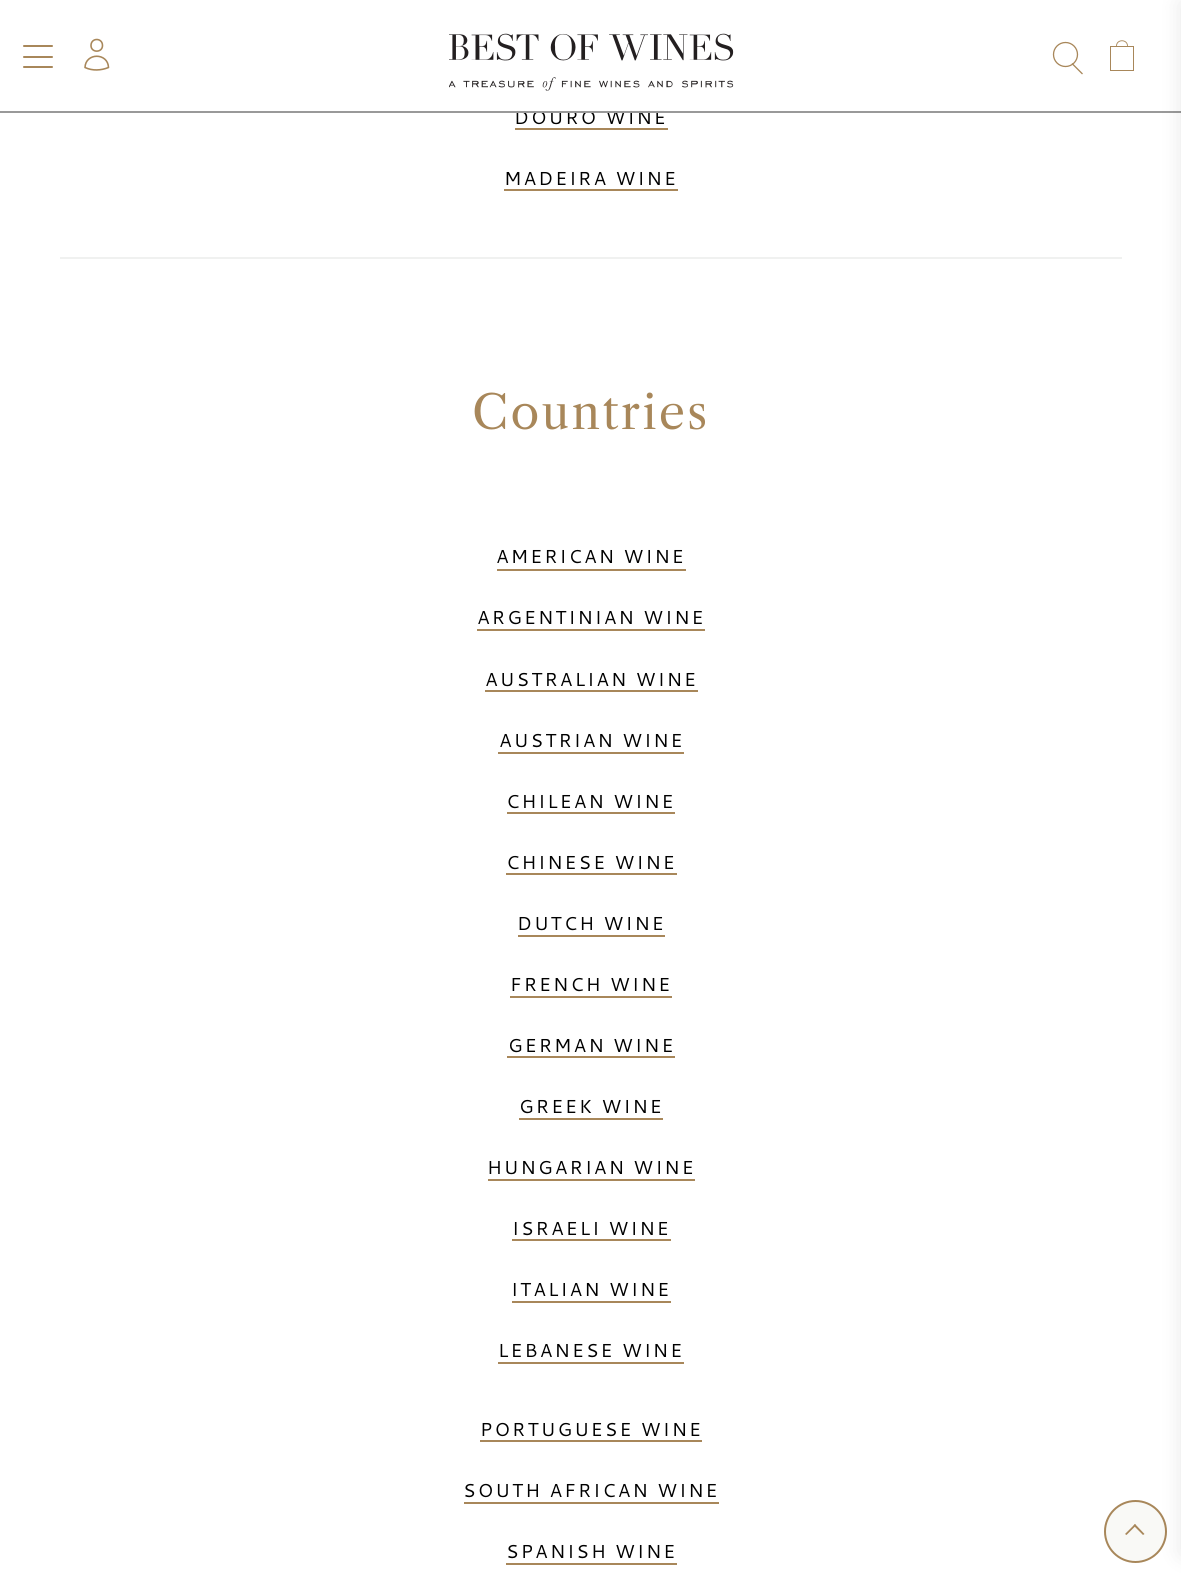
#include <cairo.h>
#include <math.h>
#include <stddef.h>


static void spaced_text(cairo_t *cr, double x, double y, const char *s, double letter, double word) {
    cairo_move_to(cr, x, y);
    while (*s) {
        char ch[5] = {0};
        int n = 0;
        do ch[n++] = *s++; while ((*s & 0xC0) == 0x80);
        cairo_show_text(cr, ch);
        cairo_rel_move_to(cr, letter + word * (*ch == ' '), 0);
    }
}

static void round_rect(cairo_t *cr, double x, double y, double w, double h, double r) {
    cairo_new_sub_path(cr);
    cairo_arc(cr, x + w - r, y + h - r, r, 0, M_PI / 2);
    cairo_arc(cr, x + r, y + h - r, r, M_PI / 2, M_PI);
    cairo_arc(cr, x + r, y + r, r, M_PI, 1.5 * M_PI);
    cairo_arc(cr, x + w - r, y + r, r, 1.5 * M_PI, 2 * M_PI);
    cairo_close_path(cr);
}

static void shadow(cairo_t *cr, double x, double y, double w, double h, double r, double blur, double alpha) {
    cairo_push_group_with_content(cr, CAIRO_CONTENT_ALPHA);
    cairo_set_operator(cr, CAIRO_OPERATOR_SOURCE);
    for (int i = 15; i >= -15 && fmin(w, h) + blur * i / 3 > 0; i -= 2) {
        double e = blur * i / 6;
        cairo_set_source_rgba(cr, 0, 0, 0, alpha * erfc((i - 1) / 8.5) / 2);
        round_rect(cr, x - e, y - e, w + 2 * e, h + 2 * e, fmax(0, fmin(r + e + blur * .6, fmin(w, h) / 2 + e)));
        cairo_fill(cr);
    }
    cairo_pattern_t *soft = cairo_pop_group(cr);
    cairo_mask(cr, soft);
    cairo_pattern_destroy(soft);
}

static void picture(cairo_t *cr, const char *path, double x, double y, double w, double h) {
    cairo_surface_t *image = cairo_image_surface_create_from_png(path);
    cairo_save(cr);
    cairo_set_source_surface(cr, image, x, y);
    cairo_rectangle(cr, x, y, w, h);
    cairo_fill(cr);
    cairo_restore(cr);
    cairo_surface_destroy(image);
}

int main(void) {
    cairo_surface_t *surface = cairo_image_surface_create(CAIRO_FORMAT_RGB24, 1181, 1577);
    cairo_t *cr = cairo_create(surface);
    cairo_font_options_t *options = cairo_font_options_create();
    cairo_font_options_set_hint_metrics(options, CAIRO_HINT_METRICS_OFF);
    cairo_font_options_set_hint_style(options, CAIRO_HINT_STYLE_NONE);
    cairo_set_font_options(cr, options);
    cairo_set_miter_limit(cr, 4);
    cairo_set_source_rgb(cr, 1, 1, 1);
    cairo_paint(cr);
    cairo_select_font_face(cr, "Cantarell", CAIRO_FONT_SLANT_NORMAL, CAIRO_FONT_WEIGHT_NORMAL);
    cairo_set_font_size(cr, 18.75);
    cairo_set_source_rgb(cr, 0, 0, 0);
    spaced_text(cr, 514, 124, "DOURO WINE", 2.2, 0);
    cairo_set_source_rgb(cr, 1, 1, 1);
    cairo_rectangle(cr, 538, 110, 52, 1);
    cairo_fill(cr);
    cairo_set_source_rgb(cr, 0.6, 0.6, 0.6);
    cairo_rectangle(cr, 0, 111, 1181, 2);
    cairo_fill(cr);
    cairo_set_source_rgb(cr, 0.659, 0.529, 0.353);
    round_rect(cr, 23, 45, 30, 2, 1);
    cairo_fill(cr);
    round_rect(cr, 23, 56, 30, 2, 1);
    cairo_fill(cr);
    round_rect(cr, 23, 66, 30, 2, 1);
    cairo_fill(cr);
    cairo_new_path(cr);
    cairo_move_to(cr, 102.5, 45.5);
    cairo_curve_to(cr, 102.5, 53, 91, 53, 91, 45.5);
    cairo_curve_to(cr, 91, 37.5, 102.5, 37.5, 102.5, 45.5);
    cairo_close_path(cr);
    cairo_move_to(cr, 85, 67.5);
    cairo_curve_to(cr, 85.5, 52.5, 108, 52.5, 108.5, 67.5);
    cairo_curve_to(cr, 101, 70.5, 92.5, 71, 85, 67.5);
    cairo_close_path(cr);
    cairo_set_line_width(cr, 1.6);
    cairo_set_line_cap(cr, CAIRO_LINE_CAP_ROUND);
    cairo_set_line_join(cr, CAIRO_LINE_JOIN_ROUND);
    cairo_stroke(cr);
    picture(cr, "img1.png", 449, 33, 285, 58);
    cairo_arc(cr, 1065.5, 54.5, 12, 0, 2 * M_PI);
    cairo_set_line_width(cr, 1.3);
    cairo_set_line_cap(cr, CAIRO_LINE_CAP_BUTT);
    cairo_set_line_join(cr, CAIRO_LINE_JOIN_MITER);
    cairo_stroke(cr);
    cairo_new_path(cr);
    cairo_move_to(cr, 1072, 63.5);
    cairo_line_to(cr, 1082.5, 74);
    cairo_stroke(cr);
    cairo_new_path(cr);
    cairo_move_to(cr, 1116.5, 46);
    cairo_curve_to(cr, 1116.5, 39, 1127.5, 39, 1127.5, 46);
    cairo_set_line_width(cr, 0.9);
    cairo_stroke(cr);
    cairo_rectangle(cr, 1110.5, 46.5, 23, 24);
    cairo_set_line_width(cr, 1);
    cairo_stroke(cr);
    cairo_set_source_rgb(cr, 0.976, 0.973, 0.961);
    cairo_arc(cr, 1135.5, 1531.5, 30.5, 0, 2 * M_PI);
    cairo_fill_preserve(cr);
    cairo_set_source_rgb(cr, 0.659, 0.529, 0.353);
    cairo_set_line_width(cr, 2);
    cairo_stroke(cr);
    cairo_set_source_rgb(cr, 0, 0, 0);
    shadow(cr, 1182, 3, 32, 1551, 0, 11, 0.1);
    cairo_set_source_rgb(cr, 0.941, 0.945, 0.941);
    cairo_rectangle(cr, 60, 257, 1062, 2);
    cairo_fill(cr);
    cairo_set_source_rgb(cr, 0.659, 0.529, 0.353);
    cairo_rectangle(cr, 515, 128, 153, 2);
    cairo_fill(cr);
    cairo_set_source_rgb(cr, 0, 0, 0);
    spaced_text(cr, 504, 185, "MADEIRA WINE", 2.2, 0);
    cairo_set_source_rgb(cr, 0.659, 0.529, 0.353);
    cairo_rectangle(cr, 504, 189, 174, 2);
    cairo_fill(cr);
    cairo_select_font_face(cr, "Libre Caslon Text", CAIRO_FONT_SLANT_NORMAL, CAIRO_FONT_WEIGHT_NORMAL);
    cairo_set_font_size(cr, 46.75);
    spaced_text(cr, 472, 429, "Countries", 2.2, 0);
    cairo_select_font_face(cr, "Cantarell", CAIRO_FONT_SLANT_NORMAL, CAIRO_FONT_WEIGHT_NORMAL);
    cairo_set_font_size(cr, 18.75);
    cairo_set_source_rgb(cr, 0, 0, 0);
    spaced_text(cr, 496, 563, "AMERICAN WINE", 2.2, 0);
    cairo_set_source_rgb(cr, 0.659, 0.529, 0.353);
    cairo_rectangle(cr, 497, 569, 189, 2);
    cairo_fill(cr);
    cairo_set_source_rgb(cr, 0, 0, 0);
    spaced_text(cr, 477, 624, "ARGENTINIAN WINE", 2.2, 0);
    cairo_set_source_rgb(cr, 0.659, 0.529, 0.353);
    cairo_rectangle(cr, 477, 629, 228, 2);
    cairo_fill(cr);
    cairo_set_source_rgb(cr, 0, 0, 0);
    spaced_text(cr, 485, 686, "AUSTRALIAN WINE", 2.2, 0);
    cairo_set_source_rgb(cr, 0.659, 0.529, 0.353);
    cairo_rectangle(cr, 485, 690, 213, 2);
    cairo_fill(cr);
    cairo_set_source_rgb(cr, 0, 0, 0);
    spaced_text(cr, 499, 747, "AUSTRIAN WINE", 2.2, 0);
    cairo_set_source_rgb(cr, 0.659, 0.529, 0.353);
    cairo_rectangle(cr, 498, 752, 186, 2);
    cairo_fill(cr);
    cairo_set_source_rgb(cr, 0, 0, 0);
    spaced_text(cr, 506, 808, "CHILEAN WINE", 2.2, 0);
    cairo_set_source_rgb(cr, 0.659, 0.529, 0.353);
    cairo_rectangle(cr, 507, 812, 168, 2);
    cairo_fill(cr);
    cairo_set_source_rgb(cr, 0, 0, 0);
    spaced_text(cr, 506, 869, "CHINESE WINE", 2.2, 0);
    cairo_set_source_rgb(cr, 0.659, 0.529, 0.353);
    cairo_rectangle(cr, 506, 873, 171, 2);
    cairo_fill(cr);
    cairo_set_source_rgb(cr, 0, 0, 0);
    spaced_text(cr, 517, 930, "DUTCH WINE", 2.2, 0);
    cairo_set_source_rgb(cr, 0.659, 0.529, 0.353);
    cairo_rectangle(cr, 518, 935, 147, 2);
    cairo_fill(cr);
    cairo_set_source_rgb(cr, 0, 0, 0);
    spaced_text(cr, 510, 991, "FRENCH WINE", 2.2, 0);
    cairo_set_source_rgb(cr, 0.659, 0.529, 0.353);
    cairo_rectangle(cr, 510, 996, 162, 2);
    cairo_fill(cr);
    cairo_set_source_rgb(cr, 0, 0, 0);
    spaced_text(cr, 508, 1052, "GERMAN WINE", 2.2, 0);
    cairo_set_source_rgb(cr, 0.659, 0.529, 0.353);
    cairo_rectangle(cr, 507, 1056, 168, 2);
    cairo_fill(cr);
    cairo_set_source_rgb(cr, 0, 0, 0);
    spaced_text(cr, 519, 1113, "GREEK WINE", 2.2, 0);
    cairo_set_source_rgb(cr, 0.659, 0.529, 0.353);
    cairo_rectangle(cr, 519, 1118, 144, 2);
    cairo_fill(cr);
    cairo_set_source_rgb(cr, 0, 0, 0);
    spaced_text(cr, 487, 1174, "HUNGARIAN WINE", 2.2, 0);
    cairo_set_source_rgb(cr, 0.659, 0.529, 0.353);
    cairo_rectangle(cr, 488, 1179, 207, 2);
    cairo_fill(cr);
    cairo_set_source_rgb(cr, 0, 0, 0);
    spaced_text(cr, 512, 1235, "ISRAELI WINE", 2.2, 0);
    cairo_set_source_rgb(cr, 0.659, 0.529, 0.353);
    cairo_rectangle(cr, 512, 1239, 159, 2);
    cairo_fill(cr);
    cairo_set_source_rgb(cr, 0, 0, 0);
    spaced_text(cr, 511, 1296, "ITALIAN WINE", 2.2, 0);
    cairo_set_source_rgb(cr, 0.659, 0.529, 0.353);
    cairo_rectangle(cr, 512, 1301, 159, 2);
    cairo_fill(cr);
    cairo_set_source_rgb(cr, 0, 0, 0);
    spaced_text(cr, 498, 1357, "LEBANESE WINE", 2.2, 0);
    cairo_set_source_rgb(cr, 0.659, 0.529, 0.353);
    cairo_rectangle(cr, 498, 1362, 186, 2);
    cairo_fill(cr);
    cairo_set_source_rgb(cr, 0, 0, 0);
    spaced_text(cr, 480, 1436, "PORTUGUESE WINE", 2.2, 0);
    cairo_set_source_rgb(cr, 0.659, 0.529, 0.353);
    cairo_rectangle(cr, 480, 1440, 222, 2);
    cairo_fill(cr);
    cairo_set_source_rgb(cr, 0, 0, 0);
    spaced_text(cr, 463, 1497, "SOUTH AFRICAN WINE", 2.2, 0);
    cairo_set_source_rgb(cr, 0.659, 0.529, 0.353);
    cairo_rectangle(cr, 464, 1502, 255, 2);
    cairo_fill(cr);
    cairo_set_source_rgb(cr, 0, 0, 0);
    spaced_text(cr, 506, 1558, "SPANISH WINE", 2.2, 0);
    cairo_set_source_rgb(cr, 0.659, 0.529, 0.353);
    cairo_rectangle(cr, 506, 1563, 171, 2);
    cairo_fill(cr);
    cairo_new_path(cr);
    cairo_move_to(cr, 1126.5, 1535);
    cairo_line_to(cr, 1125, 1534);
    cairo_line_to(cr, 1135, 1524);
    cairo_line_to(cr, 1136, 1525.5);
    cairo_close_path(cr);
    cairo_fill(cr);
    cairo_new_path(cr);
    cairo_move_to(cr, 1143, 1535);
    cairo_line_to(cr, 1133.5, 1525.5);
    cairo_line_to(cr, 1135, 1524);
    cairo_line_to(cr, 1144.5, 1534);
    cairo_close_path(cr);
    cairo_fill(cr);
    cairo_surface_write_to_png(surface, "page.png");
    cairo_font_options_destroy(options);
    cairo_destroy(cr);
    cairo_surface_destroy(surface);
    return 0;
}
